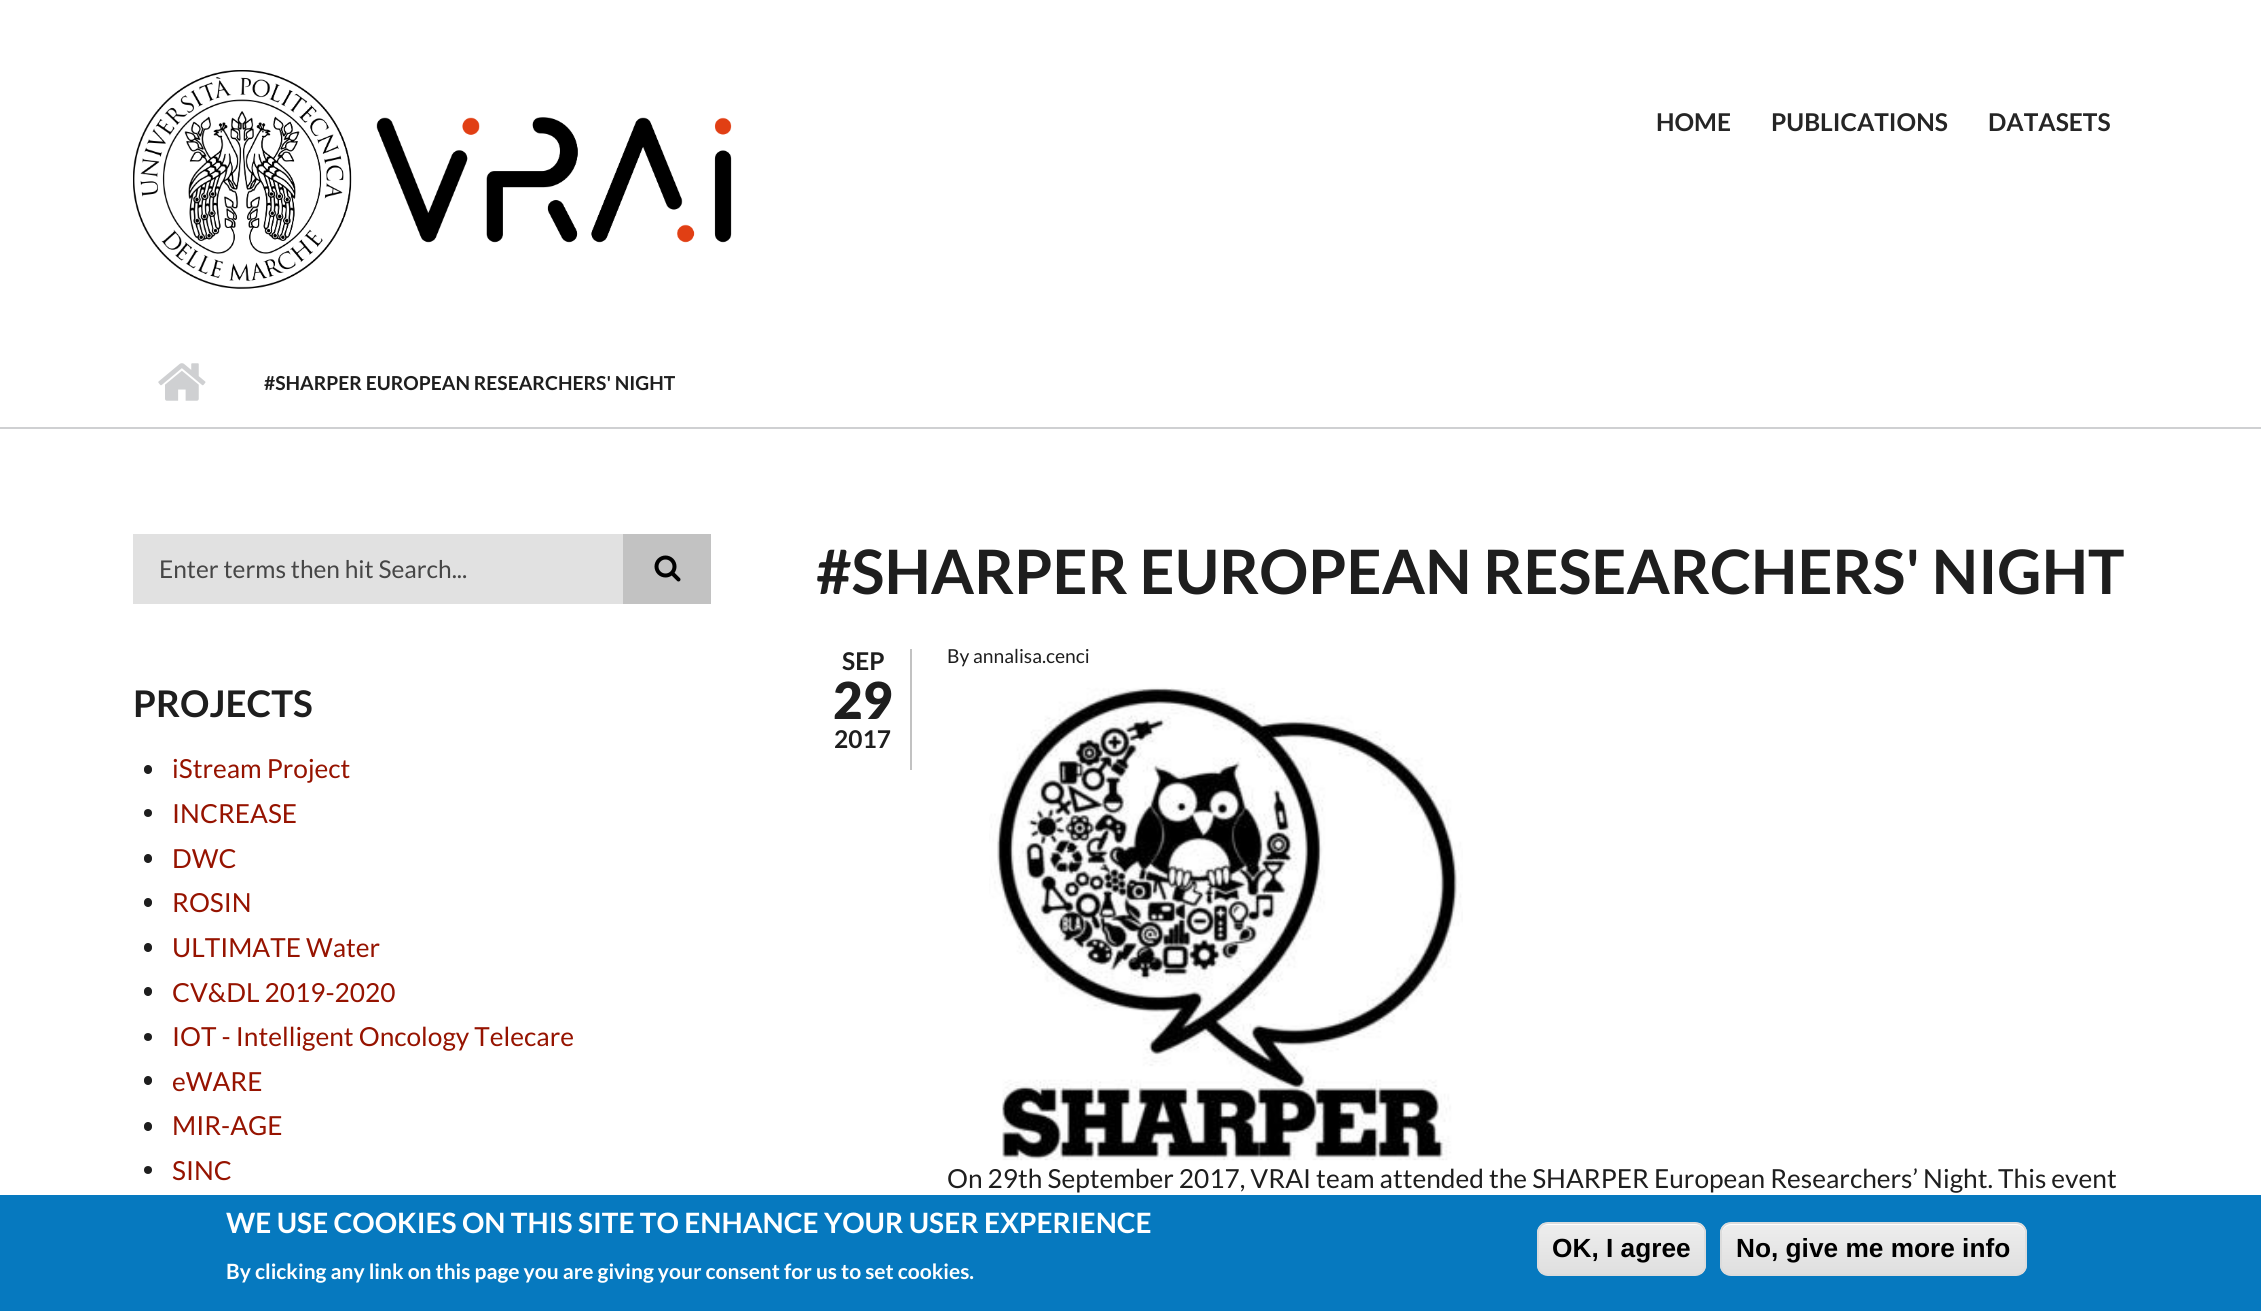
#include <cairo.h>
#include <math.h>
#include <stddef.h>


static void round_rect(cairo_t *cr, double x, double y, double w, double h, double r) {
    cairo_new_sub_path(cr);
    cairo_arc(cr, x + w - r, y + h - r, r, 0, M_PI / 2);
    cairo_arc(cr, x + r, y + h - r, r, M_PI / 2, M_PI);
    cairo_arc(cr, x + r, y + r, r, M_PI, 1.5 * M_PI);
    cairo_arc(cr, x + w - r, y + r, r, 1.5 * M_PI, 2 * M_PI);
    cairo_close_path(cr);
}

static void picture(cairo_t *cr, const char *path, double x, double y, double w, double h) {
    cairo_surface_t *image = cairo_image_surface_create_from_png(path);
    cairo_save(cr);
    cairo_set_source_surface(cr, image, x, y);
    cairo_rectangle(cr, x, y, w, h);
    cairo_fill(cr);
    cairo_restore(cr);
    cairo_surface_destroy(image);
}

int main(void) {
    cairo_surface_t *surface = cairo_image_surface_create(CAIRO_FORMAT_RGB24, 2261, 1311);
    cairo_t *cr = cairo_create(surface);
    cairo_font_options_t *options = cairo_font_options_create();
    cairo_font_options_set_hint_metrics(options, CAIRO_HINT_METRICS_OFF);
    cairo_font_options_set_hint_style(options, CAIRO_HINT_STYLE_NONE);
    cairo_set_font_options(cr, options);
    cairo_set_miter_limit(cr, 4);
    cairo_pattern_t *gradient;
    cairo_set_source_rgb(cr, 1, 1, 1);
    cairo_paint(cr);
    picture(cr, "img1.png", 133, 70, 599, 219);
    cairo_select_font_face(cr, "Lato", CAIRO_FONT_SLANT_NORMAL, CAIRO_FONT_WEIGHT_BOLD);
    cairo_set_font_size(cr, 24.5);
    cairo_set_source_rgb(cr, 0.145, 0.145, 0.145);
    cairo_move_to(cr, 1656, 131);
    cairo_show_text(cr, "HOME");
    cairo_move_to(cr, 1771, 131);
    cairo_show_text(cr, "PUBLICATIONS");
    cairo_move_to(cr, 1988, 131);
    cairo_show_text(cr, "DATASETS");
    cairo_set_source_rgb(cr, 0.812, 0.816, 0.824);
    cairo_rectangle(cr, 0, 427, 2261, 2);
    cairo_fill(cr);
    picture(cr, "img2.png", 158, 363, 48, 38);
    cairo_set_font_size(cr, 19.25);
    cairo_set_source_rgb(cr, 0.118, 0.118, 0.118);
    cairo_move_to(cr, 264, 390);
    cairo_show_text(cr, "#SHARPER EUROPEAN RESEARCHERS' NIGHT");
    cairo_set_source_rgb(cr, 0.882, 0.882, 0.882);
    cairo_rectangle(cr, 133, 534, 490, 70);
    cairo_fill(cr);
    cairo_select_font_face(cr, "Lato", CAIRO_FONT_SLANT_NORMAL, CAIRO_FONT_WEIGHT_NORMAL);
    cairo_set_font_size(cr, 24.5);
    cairo_set_source_rgb(cr, 0.275, 0.275, 0.275);
    cairo_move_to(cr, 159, 578);
    cairo_show_text(cr, "Enter terms then hit Search...");
    cairo_set_source_rgb(cr, 0.761, 0.761, 0.761);
    cairo_rectangle(cr, 623, 534, 88, 70);
    cairo_fill(cr);
    picture(cr, "img3.png", 654, 555, 27, 27);
    cairo_select_font_face(cr, "Lato", CAIRO_FONT_SLANT_NORMAL, CAIRO_FONT_WEIGHT_BOLD);
    cairo_set_font_size(cr, 36.75);
    cairo_set_source_rgb(cr, 0.118, 0.118, 0.118);
    cairo_move_to(cr, 133, 717);
    cairo_show_text(cr, "PROJECTS");
    round_rect(cr, 144, 765, 8, 9, 4);
    cairo_fill(cr);
    cairo_select_font_face(cr, "Lato", CAIRO_FONT_SLANT_NORMAL, CAIRO_FONT_WEIGHT_NORMAL);
    cairo_set_font_size(cr, 26.25);
    cairo_set_source_rgb(cr, 0.588, 0.075, 0);
    cairo_move_to(cr, 172, 778);
    cairo_show_text(cr, "iStream Project");
    cairo_set_source_rgb(cr, 0.118, 0.118, 0.118);
    cairo_new_path(cr);
    cairo_arc(cr, 148, 813, 4, 0, 2 * M_PI);
    cairo_fill(cr);
    cairo_set_source_rgb(cr, 0.588, 0.075, 0);
    cairo_move_to(cr, 172, 823);
    cairo_show_text(cr, "INCREASE");
    cairo_set_source_rgb(cr, 0.118, 0.118, 0.118);
    round_rect(cr, 144, 854, 8, 9, 4);
    cairo_fill(cr);
    cairo_set_source_rgb(cr, 0.588, 0.075, 0);
    cairo_move_to(cr, 172, 868);
    cairo_show_text(cr, "DWC");
    cairo_set_source_rgb(cr, 0.118, 0.118, 0.118);
    round_rect(cr, 144, 898, 8, 9, 4);
    cairo_fill(cr);
    cairo_set_source_rgb(cr, 0.588, 0.075, 0);
    cairo_move_to(cr, 172, 912);
    cairo_show_text(cr, "ROSIN");
    cairo_set_source_rgb(cr, 0.118, 0.118, 0.118);
    round_rect(cr, 144, 943, 8, 9, 4);
    cairo_fill(cr);
    cairo_set_source_rgb(cr, 0.588, 0.075, 0);
    cairo_move_to(cr, 172, 957);
    cairo_show_text(cr, "ULTIMATE Water");
    cairo_set_source_rgb(cr, 0.118, 0.118, 0.118);
    round_rect(cr, 144, 987, 8, 9, 4);
    cairo_fill(cr);
    cairo_set_source_rgb(cr, 0.588, 0.075, 0);
    cairo_move_to(cr, 172, 1002);
    cairo_show_text(cr, "CV&DL 2019-2020");
    cairo_set_source_rgb(cr, 0.118, 0.118, 0.118);
    cairo_new_path(cr);
    cairo_arc(cr, 148, 1037, 4, 0, 2 * M_PI);
    cairo_fill(cr);
    cairo_set_source_rgb(cr, 0.588, 0.075, 0);
    cairo_move_to(cr, 172, 1046);
    cairo_show_text(cr, "IOT - Intelligent Oncology Telecare");
    cairo_set_source_rgb(cr, 0.118, 0.118, 0.118);
    round_rect(cr, 144, 1076, 8, 9, 4);
    cairo_fill(cr);
    cairo_set_source_rgb(cr, 0.588, 0.075, 0);
    cairo_move_to(cr, 172, 1091);
    cairo_show_text(cr, "eWARE");
    cairo_set_source_rgb(cr, 0.118, 0.118, 0.118);
    round_rect(cr, 144, 1122, 8, 9, 4);
    cairo_fill(cr);
    cairo_set_source_rgb(cr, 0.588, 0.075, 0);
    cairo_move_to(cr, 172, 1135);
    cairo_show_text(cr, "MIR-AGE");
    cairo_set_source_rgb(cr, 0.118, 0.118, 0.118);
    cairo_new_path(cr);
    cairo_arc(cr, 148, 1170, 4, 0, 2 * M_PI);
    cairo_fill(cr);
    cairo_set_source_rgb(cr, 0.588, 0.075, 0);
    cairo_move_to(cr, 172, 1180);
    cairo_show_text(cr, "SINC");
    cairo_select_font_face(cr, "Lato", CAIRO_FONT_SLANT_NORMAL, CAIRO_FONT_WEIGHT_BOLD);
    cairo_set_font_size(cr, 61.25);
    cairo_set_source_rgb(cr, 0.118, 0.118, 0.118);
    cairo_move_to(cr, 816, 594);
    cairo_show_text(cr, "#SHARPER EUROPEAN RESEARCHERS' NIGHT");
    cairo_set_source_rgb(cr, 0.761, 0.761, 0.761);
    cairo_rectangle(cr, 910, 649, 2, 121);
    cairo_fill(cr);
    cairo_set_font_size(cr, 24.5);
    cairo_set_source_rgb(cr, 0.118, 0.118, 0.118);
    cairo_move_to(cr, 842, 670);
    cairo_show_text(cr, "SEP");
    cairo_select_font_face(cr, "Lato Black", CAIRO_FONT_SLANT_NORMAL, CAIRO_FONT_WEIGHT_NORMAL);
    cairo_set_font_size(cr, 51);
    cairo_move_to(cr, 833, 719);
    cairo_show_text(cr, "29");
    cairo_select_font_face(cr, "Lato", CAIRO_FONT_SLANT_NORMAL, CAIRO_FONT_WEIGHT_BOLD);
    cairo_set_font_size(cr, 24.5);
    cairo_move_to(cr, 834, 748);
    cairo_show_text(cr, "2017");
    cairo_select_font_face(cr, "Lato", CAIRO_FONT_SLANT_NORMAL, CAIRO_FONT_WEIGHT_NORMAL);
    cairo_set_font_size(cr, 19.25);
    cairo_move_to(cr, 947, 663);
    cairo_show_text(cr, "By annalisa.cenci");
    picture(cr, "img4.png", 989, 687, 474, 474);
    cairo_set_font_size(cr, 26.25);
    cairo_move_to(cr, 947, 1188);
    cairo_show_text(cr, "On 29th September 2017, VRAI team attended the SHARPER European Researchers’ Night. This event");
    cairo_set_source_rgb(cr, 0.027, 0.475, 0.749);
    cairo_rectangle(cr, 0, 1195, 2261, 116);
    cairo_fill(cr);
    cairo_select_font_face(cr, "Lato", CAIRO_FONT_SLANT_NORMAL, CAIRO_FONT_WEIGHT_BOLD);
    cairo_set_font_size(cr, 28);
    cairo_set_source_rgb(cr, 1, 1, 1);
    cairo_move_to(cr, 226, 1233);
    cairo_show_text(cr, "WE USE COOKIES ON THIS SITE TO ENHANCE YOUR USER EXPERIENCE");
    cairo_set_font_size(cr, 21);
    cairo_move_to(cr, 226, 1279);
    cairo_show_text(cr, "By clicking any link on this page you are giving your consent for us to set cookies.");
    cairo_save(cr);
    round_rect(cr, 1537, 1222, 169, 54, 11);
    cairo_clip(cr);
    gradient = cairo_pattern_create_linear(1621, 1223, 1621, 1274);
    cairo_pattern_add_color_stop_rgba(gradient, 0.05, 0.929, 0.929, 0.929, 1);
    cairo_pattern_add_color_stop_rgba(gradient, 1, 0.875, 0.875, 0.875, 1);
    cairo_set_source(cr, gradient);
    cairo_pattern_destroy(gradient);
    cairo_rectangle(cr, 1537, 1223, 169, 51);
    cairo_fill(cr);
    cairo_restore(cr);
    cairo_new_path(cr);
    cairo_move_to(cr, 1547, 1225);
    cairo_line_to(cr, 1696, 1225);
    cairo_curve_to(cr, 1701, 1225, 1704, 1229, 1704, 1234);
    cairo_line_to(cr, 1704, 1270);
    cairo_curve_to(cr, 1705, 1268, 1705, 1267, 1705, 1265);
    cairo_line_to(cr, 1705, 1232);
    cairo_curve_to(cr, 1705, 1227, 1701, 1223, 1696, 1223);
    cairo_line_to(cr, 1547, 1223);
    cairo_curve_to(cr, 1542, 1223, 1538, 1227, 1538, 1232);
    cairo_line_to(cr, 1538, 1234);
    cairo_curve_to(cr, 1538, 1229, 1542, 1225, 1547, 1225);
    cairo_close_path(cr);
    cairo_fill(cr);
    round_rect(cr, 1538, 1223, 167, 52, 10);
    cairo_set_source_rgb(cr, 0.863, 0.863, 0.863);
    cairo_stroke(cr);
    cairo_select_font_face(cr, "Liberation Sans", CAIRO_FONT_SLANT_NORMAL, CAIRO_FONT_WEIGHT_BOLD);
    cairo_set_font_size(cr, 26.25);
    cairo_set_source_rgb(cr, 0, 0, 0);
    cairo_move_to(cr, 1552, 1257);
    cairo_show_text(cr, "OK, I agree");
    cairo_save(cr);
    round_rect(cr, 1720, 1222, 307, 54, 11);
    cairo_clip(cr);
    gradient = cairo_pattern_create_linear(1873, 1223, 1873, 1274);
    cairo_pattern_add_color_stop_rgba(gradient, 0.05, 0.929, 0.929, 0.929, 1);
    cairo_pattern_add_color_stop_rgba(gradient, 1, 0.875, 0.875, 0.875, 1);
    cairo_set_source(cr, gradient);
    cairo_pattern_destroy(gradient);
    cairo_rectangle(cr, 1720, 1223, 307, 51);
    cairo_fill(cr);
    cairo_restore(cr);
    cairo_set_source_rgb(cr, 1, 1, 1);
    cairo_new_path(cr);
    cairo_move_to(cr, 1731, 1225);
    cairo_line_to(cr, 2016, 1225);
    cairo_curve_to(cr, 2021, 1225, 2025, 1229, 2025, 1234);
    cairo_line_to(cr, 2025, 1232);
    cairo_curve_to(cr, 2025, 1227, 2021, 1223, 2016, 1223);
    cairo_line_to(cr, 1731, 1223);
    cairo_curve_to(cr, 1726, 1223, 1722, 1227, 1722, 1232);
    cairo_line_to(cr, 1722, 1234);
    cairo_curve_to(cr, 1722, 1229, 1726, 1225, 1731, 1225);
    cairo_close_path(cr);
    cairo_fill(cr);
    round_rect(cr, 1721, 1223, 305, 52, 10);
    cairo_set_source_rgb(cr, 0.863, 0.863, 0.863);
    cairo_stroke(cr);
    cairo_set_source_rgb(cr, 0, 0, 0);
    cairo_move_to(cr, 1736, 1257);
    cairo_show_text(cr, "No, give me more info");
    cairo_surface_write_to_png(surface, "page.png");
    cairo_font_options_destroy(options);
    cairo_destroy(cr);
    cairo_surface_destroy(surface);
    return 0;
}
